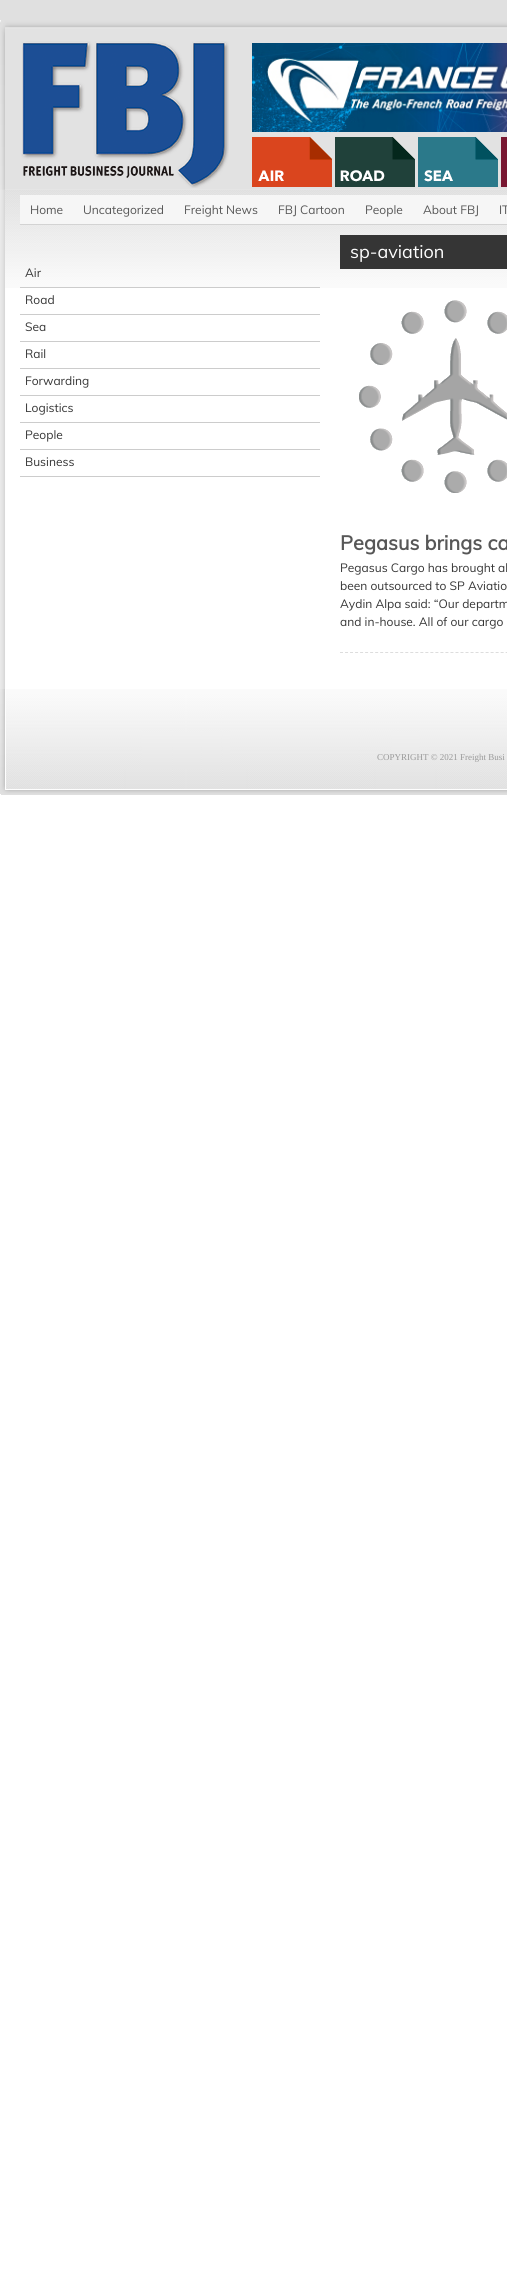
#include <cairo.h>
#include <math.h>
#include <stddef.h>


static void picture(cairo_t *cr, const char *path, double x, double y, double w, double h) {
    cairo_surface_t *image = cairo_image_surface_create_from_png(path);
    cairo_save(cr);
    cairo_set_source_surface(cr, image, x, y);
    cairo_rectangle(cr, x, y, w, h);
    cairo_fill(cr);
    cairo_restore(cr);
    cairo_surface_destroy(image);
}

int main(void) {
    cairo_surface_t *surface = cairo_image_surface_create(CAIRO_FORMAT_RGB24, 507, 2285);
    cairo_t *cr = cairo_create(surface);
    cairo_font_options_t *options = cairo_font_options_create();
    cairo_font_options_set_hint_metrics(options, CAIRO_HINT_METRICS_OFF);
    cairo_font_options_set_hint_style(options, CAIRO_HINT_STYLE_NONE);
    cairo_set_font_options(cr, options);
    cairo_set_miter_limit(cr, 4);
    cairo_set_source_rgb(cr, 1, 1, 1);
    cairo_paint(cr);
    picture(cr, "img1.png", 0, 0, 507, 190);
    picture(cr, "img2.png", 0, 20, 507, 170);
    picture(cr, "img3.png", 21, 41, 208, 147);
    picture(cr, "img4.png", 252, 43, 255, 89);
    picture(cr, "img5.png", 252, 137, 80, 50);
    picture(cr, "img6.png", 335, 137, 80, 50);
    picture(cr, "img7.png", 418, 137, 80, 50);
    cairo_set_source_rgb(cr, 0.471, 0.09, 0.192);
    cairo_rectangle(cr, 501, 137, 6, 50);
    cairo_fill(cr);
    picture(cr, "img8.png", 0, 190, 507, 499);
    picture(cr, "img9.png", 5, 190, 502, 98);
    cairo_set_source_rgb(cr, 0.961, 0.961, 0.961);
    cairo_rectangle(cr, 20, 195, 487, 29);
    cairo_fill(cr);
    cairo_set_source_rgb(cr, 0.827, 0.827, 0.827);
    cairo_rectangle(cr, 20, 224, 487, 1);
    cairo_fill(cr);
    cairo_select_font_face(cr, "Muli", CAIRO_FONT_SLANT_NORMAL, CAIRO_FONT_WEIGHT_NORMAL);
    cairo_set_font_size(cr, 12);
    cairo_set_source_rgb(cr, 0.341, 0.341, 0.341);
    cairo_move_to(cr, 30, 214);
    cairo_show_text(cr, "Home");
    cairo_move_to(cr, 83, 214);
    cairo_show_text(cr, "Uncategorized");
    cairo_move_to(cr, 184, 214);
    cairo_show_text(cr, "Freight News");
    cairo_move_to(cr, 278, 214);
    cairo_show_text(cr, "FBJ Cartoon");
    cairo_move_to(cr, 365, 214);
    cairo_show_text(cr, "People");
    cairo_move_to(cr, 423, 214);
    cairo_show_text(cr, "About FBJ");
    cairo_move_to(cr, 499, 214);
    cairo_show_text(cr, "IT");
    cairo_set_source_rgb(cr, 0.8, 0.8, 0.8);
    cairo_rectangle(cr, 20, 287, 300, 1);
    cairo_fill(cr);
    cairo_set_source_rgb(cr, 0.208, 0.208, 0.208);
    cairo_move_to(cr, 25, 277);
    cairo_show_text(cr, "Air");
    cairo_set_source_rgb(cr, 0.8, 0.8, 0.8);
    cairo_rectangle(cr, 20, 314, 300, 1);
    cairo_fill(cr);
    cairo_set_source_rgb(cr, 0.208, 0.208, 0.208);
    cairo_move_to(cr, 25, 304);
    cairo_show_text(cr, "Road");
    cairo_set_source_rgb(cr, 0.8, 0.8, 0.8);
    cairo_rectangle(cr, 20, 341, 300, 1);
    cairo_fill(cr);
    cairo_set_source_rgb(cr, 0.208, 0.208, 0.208);
    cairo_move_to(cr, 25, 331);
    cairo_show_text(cr, "Sea");
    cairo_set_source_rgb(cr, 0.8, 0.8, 0.8);
    cairo_rectangle(cr, 20, 368, 300, 1);
    cairo_fill(cr);
    cairo_set_source_rgb(cr, 0.208, 0.208, 0.208);
    cairo_move_to(cr, 25, 358);
    cairo_show_text(cr, "Rail");
    cairo_set_source_rgb(cr, 0.8, 0.8, 0.8);
    cairo_rectangle(cr, 20, 395, 300, 1);
    cairo_fill(cr);
    cairo_set_source_rgb(cr, 0.208, 0.208, 0.208);
    cairo_move_to(cr, 25, 385);
    cairo_show_text(cr, "Forwarding");
    cairo_set_source_rgb(cr, 0.8, 0.8, 0.8);
    cairo_rectangle(cr, 20, 422, 300, 1);
    cairo_fill(cr);
    cairo_set_source_rgb(cr, 0.208, 0.208, 0.208);
    cairo_move_to(cr, 25, 412);
    cairo_show_text(cr, "Logistics");
    cairo_set_source_rgb(cr, 0.8, 0.8, 0.8);
    cairo_rectangle(cr, 20, 449, 300, 1);
    cairo_fill(cr);
    cairo_set_source_rgb(cr, 0.208, 0.208, 0.208);
    cairo_move_to(cr, 25, 439);
    cairo_show_text(cr, "People");
    cairo_set_source_rgb(cr, 0.8, 0.8, 0.8);
    cairo_rectangle(cr, 20, 476, 300, 1);
    cairo_fill(cr);
    cairo_set_source_rgb(cr, 0.208, 0.208, 0.208);
    cairo_move_to(cr, 25, 466);
    cairo_show_text(cr, "Business");
    cairo_rectangle(cr, 340, 235, 167, 34);
    cairo_fill(cr);
    cairo_set_font_size(cr, 18);
    cairo_set_source_rgb(cr, 1, 1, 1);
    cairo_move_to(cr, 350, 258);
    cairo_show_text(cr, "sp-aviation");
    picture(cr, "img10.png", 359, 300, 148, 193);
    cairo_select_font_face(cr, "Muli", CAIRO_FONT_SLANT_NORMAL, CAIRO_FONT_WEIGHT_BOLD);
    cairo_set_font_size(cr, 20);
    cairo_set_source_rgb(cr, 0.341, 0.341, 0.341);
    cairo_move_to(cr, 340, 550);
    cairo_show_text(cr, "Pegasus brings ca");
    cairo_select_font_face(cr, "Muli", CAIRO_FONT_SLANT_NORMAL, CAIRO_FONT_WEIGHT_NORMAL);
    cairo_set_font_size(cr, 12);
    cairo_set_source_rgb(cr, 0.208, 0.208, 0.208);
    cairo_move_to(cr, 340, 572);
    cairo_show_text(cr, "Pegasus Cargo has brought al");
    cairo_move_to(cr, 340, 590);
    cairo_show_text(cr, "been outsourced to SP Aviatio");
    cairo_move_to(cr, 340, 608);
    cairo_show_text(cr, "Aydin Alpa said: “Our departm");
    cairo_move_to(cr, 340, 626);
    cairo_show_text(cr, "and in-house. All of our cargo");
    cairo_new_path(cr);
    cairo_move_to(cr, 340, 652.5);
    cairo_line_to(cr, 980, 652.5);
    cairo_set_source_rgb(cr, 0.867, 0.867, 0.867);
    cairo_set_line_width(cr, 1);
    cairo_set_dash(cr, (double[]){3, 2.02}, 2, 0);
    cairo_stroke(cr);
    picture(cr, "img11.png", 0, 689, 507, 106);
    cairo_select_font_face(cr, "Liberation Serif", CAIRO_FONT_SLANT_NORMAL, CAIRO_FONT_WEIGHT_NORMAL);
    cairo_set_font_size(cr, 9);
    cairo_set_source_rgb(cr, 0.6, 0.6, 0.6);
    cairo_move_to(cr, 377, 760);
    cairo_show_text(cr, "COPYRIGHT © 2021 Freight Busi");
    cairo_surface_write_to_png(surface, "page.png");
    cairo_font_options_destroy(options);
    cairo_destroy(cr);
    cairo_surface_destroy(surface);
    return 0;
}
